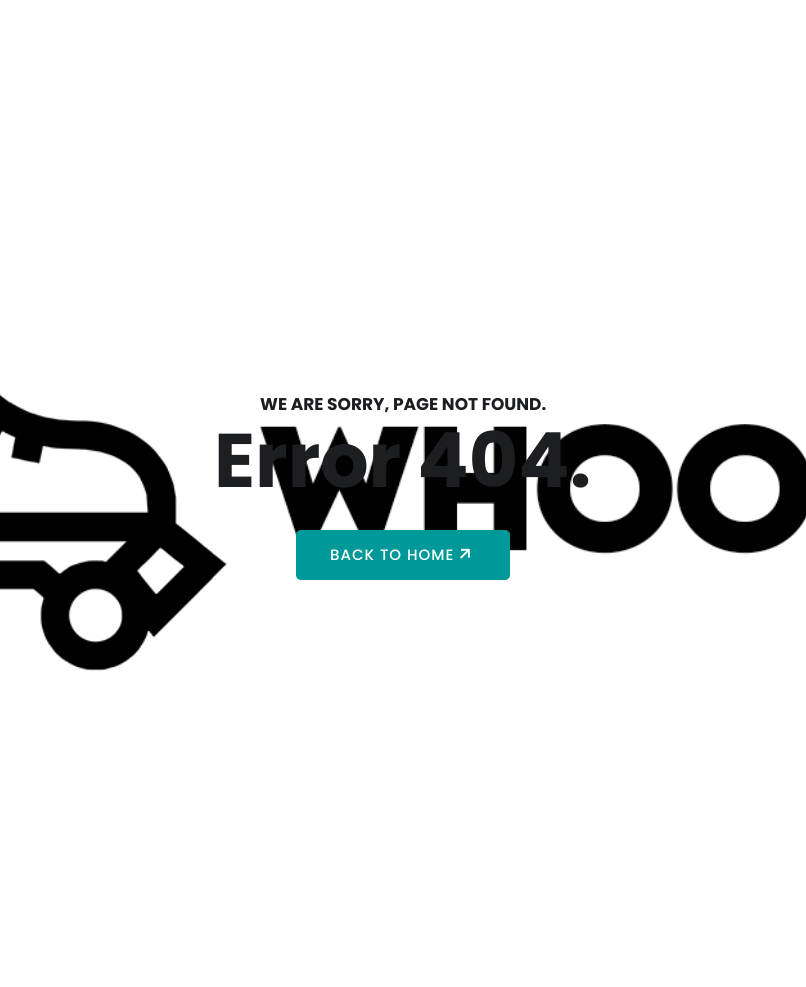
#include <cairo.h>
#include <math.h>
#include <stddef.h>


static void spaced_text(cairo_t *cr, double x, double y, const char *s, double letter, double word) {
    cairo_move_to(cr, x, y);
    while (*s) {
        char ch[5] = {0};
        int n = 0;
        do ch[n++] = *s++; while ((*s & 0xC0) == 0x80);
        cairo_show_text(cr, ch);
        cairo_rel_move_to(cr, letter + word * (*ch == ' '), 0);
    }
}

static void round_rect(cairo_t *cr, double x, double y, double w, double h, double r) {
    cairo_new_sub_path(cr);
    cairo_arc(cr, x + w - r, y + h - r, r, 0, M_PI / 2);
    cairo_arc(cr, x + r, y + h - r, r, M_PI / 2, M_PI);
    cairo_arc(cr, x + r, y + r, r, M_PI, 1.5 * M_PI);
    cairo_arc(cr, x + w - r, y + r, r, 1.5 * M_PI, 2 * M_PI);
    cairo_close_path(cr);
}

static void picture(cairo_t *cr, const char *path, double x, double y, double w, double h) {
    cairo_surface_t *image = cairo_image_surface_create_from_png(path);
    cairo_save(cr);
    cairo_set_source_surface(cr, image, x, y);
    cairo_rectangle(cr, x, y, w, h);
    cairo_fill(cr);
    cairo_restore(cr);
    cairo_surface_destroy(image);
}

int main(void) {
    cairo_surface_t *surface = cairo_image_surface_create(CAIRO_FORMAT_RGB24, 806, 987);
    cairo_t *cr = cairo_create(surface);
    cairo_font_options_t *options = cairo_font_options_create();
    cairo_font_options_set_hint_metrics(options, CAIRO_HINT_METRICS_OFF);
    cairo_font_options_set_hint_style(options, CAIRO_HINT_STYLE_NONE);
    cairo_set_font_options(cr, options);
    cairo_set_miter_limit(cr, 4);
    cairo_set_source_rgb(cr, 1, 1, 1);
    cairo_paint(cr);
    picture(cr, "img1.png", 0, 394, 806, 277);
    cairo_select_font_face(cr, "Poppins", CAIRO_FONT_SLANT_NORMAL, CAIRO_FONT_WEIGHT_BOLD);
    cairo_set_font_size(cr, 17);
    cairo_set_source_rgb(cr, 0.114, 0.118, 0.129);
    cairo_move_to(cr, 260, 410);
    cairo_show_text(cr, "WE ARE SORRY, PAGE NOT FOUND.");
    cairo_set_font_size(cr, 76);
    cairo_move_to(cr, 214, 487);
    cairo_show_text(cr, "Error 404.");
    cairo_set_source_rgb(cr, 0, 0.6, 0.6);
    round_rect(cr, 296, 530, 214, 50, 5);
    cairo_fill(cr);
    cairo_select_font_face(cr, "Poppins Medium", CAIRO_FONT_SLANT_NORMAL, CAIRO_FONT_WEIGHT_NORMAL);
    cairo_set_font_size(cr, 15);
    cairo_set_source_rgb(cr, 1, 1, 1);
    spaced_text(cr, 330, 560, "BACK TO HOME", 1, 0);
    picture(cr, "img2.png", 460, 548, 10, 11);
    cairo_surface_write_to_png(surface, "page.png");
    cairo_font_options_destroy(options);
    cairo_destroy(cr);
    cairo_surface_destroy(surface);
    return 0;
}
